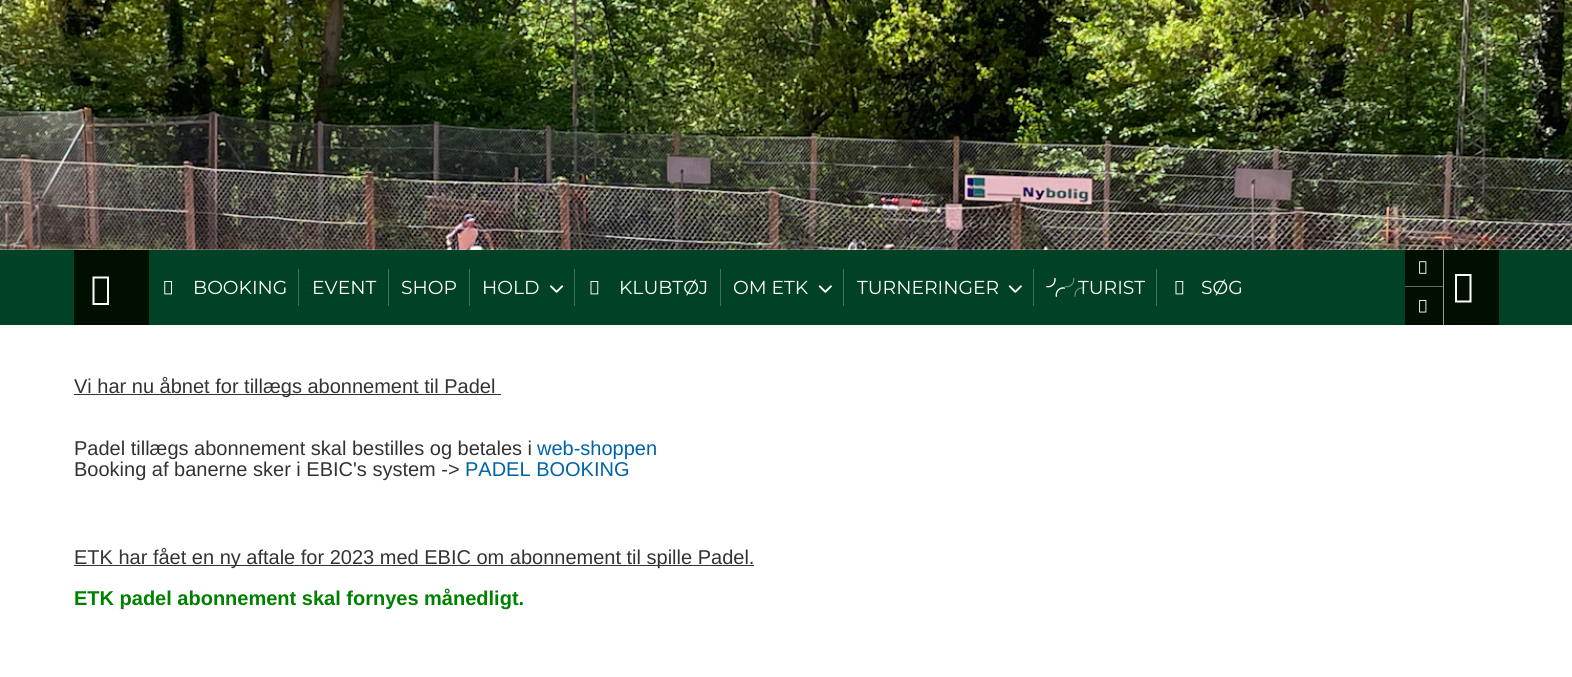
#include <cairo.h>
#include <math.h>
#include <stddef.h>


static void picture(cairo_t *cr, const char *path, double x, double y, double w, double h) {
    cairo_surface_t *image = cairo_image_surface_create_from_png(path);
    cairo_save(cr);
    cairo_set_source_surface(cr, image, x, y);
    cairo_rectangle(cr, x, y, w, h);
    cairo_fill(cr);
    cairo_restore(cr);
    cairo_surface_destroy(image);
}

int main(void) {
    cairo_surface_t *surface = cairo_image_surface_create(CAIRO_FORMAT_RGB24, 1572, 677);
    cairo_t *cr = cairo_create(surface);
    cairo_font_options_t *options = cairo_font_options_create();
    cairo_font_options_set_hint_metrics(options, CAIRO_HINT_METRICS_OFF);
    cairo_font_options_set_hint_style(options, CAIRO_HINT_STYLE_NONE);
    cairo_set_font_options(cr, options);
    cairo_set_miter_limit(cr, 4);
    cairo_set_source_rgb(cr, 1, 1, 1);
    cairo_paint(cr);
    picture(cr, "img1.png", 0, 0, 1572, 250);
    cairo_set_source_rgb(cr, 0.004, 0.255, 0.149);
    cairo_rectangle(cr, 0, 250, 1572, 75);
    cairo_fill(cr);
    cairo_set_source_rgb(cr, 0, 0.059, 0);
    cairo_rectangle(cr, 74, 250, 75, 75);
    cairo_fill(cr);
    cairo_set_source_rgb(cr, 1, 1, 1);
    cairo_new_path(cr);
    cairo_move_to(cr, 92.5, 305);
    cairo_line_to(cr, 92.5, 276.5);
    cairo_line_to(cr, 109, 276.5);
    cairo_line_to(cr, 109, 305);
    cairo_close_path(cr);
    cairo_move_to(cr, 94.5, 303);
    cairo_line_to(cr, 107, 303);
    cairo_line_to(cr, 107, 278.5);
    cairo_line_to(cr, 94.5, 278.5);
    cairo_close_path(cr);
    cairo_fill(cr);
    picture(cr, "img2.png", 164, 281, 8, 14);
    cairo_select_font_face(cr, "Montserrat", CAIRO_FONT_SLANT_NORMAL, CAIRO_FONT_WEIGHT_NORMAL);
    cairo_set_font_size(cr, 18.75);
    cairo_move_to(cr, 193, 294);
    cairo_show_text(cr, "BOOKING");
    cairo_set_source_rgb(cr, 0.255, 0.443, 0.361);
    cairo_rectangle(cr, 298, 269, 1, 37);
    cairo_fill(cr);
    cairo_set_source_rgb(cr, 1, 1, 1);
    cairo_move_to(cr, 312, 294);
    cairo_show_text(cr, "EVENT");
    cairo_set_source_rgb(cr, 0.255, 0.443, 0.361);
    cairo_rectangle(cr, 388, 269, 1, 37);
    cairo_fill(cr);
    cairo_set_source_rgb(cr, 1, 1, 1);
    cairo_move_to(cr, 401, 294);
    cairo_show_text(cr, "SHOP");
    cairo_set_source_rgb(cr, 0.255, 0.443, 0.361);
    cairo_rectangle(cr, 469, 269, 1, 37);
    cairo_fill(cr);
    cairo_set_source_rgb(cr, 1, 1, 1);
    cairo_move_to(cr, 482, 294);
    cairo_show_text(cr, "HOLD");
    picture(cr, "img3.png", 550, 285, 14, 8);
    cairo_set_source_rgb(cr, 0.255, 0.443, 0.361);
    cairo_rectangle(cr, 574, 269, 1, 37);
    cairo_fill(cr);
    picture(cr, "img4.png", 590, 281, 9, 14);
    cairo_set_source_rgb(cr, 1, 1, 1);
    cairo_move_to(cr, 619, 294);
    cairo_show_text(cr, "KLUBTØJ");
    cairo_set_source_rgb(cr, 0.255, 0.443, 0.361);
    cairo_rectangle(cr, 720, 269, 1, 37);
    cairo_fill(cr);
    cairo_set_source_rgb(cr, 1, 1, 1);
    cairo_move_to(cr, 733, 294);
    cairo_show_text(cr, "OM ETK");
    picture(cr, "img5.png", 818, 285, 14, 8);
    cairo_set_source_rgb(cr, 0.255, 0.443, 0.361);
    cairo_rectangle(cr, 843, 269, 1, 37);
    cairo_fill(cr);
    cairo_set_source_rgb(cr, 1, 1, 1);
    cairo_move_to(cr, 857, 294);
    cairo_show_text(cr, "TURNERINGER");
    picture(cr, "img5.png", 1008, 285, 14, 8);
    cairo_set_source_rgb(cr, 0.255, 0.443, 0.361);
    cairo_rectangle(cr, 1033, 269, 1, 37);
    cairo_fill(cr);
    picture(cr, "img6.png", 1046, 278, 19, 19);
    cairo_set_source_rgb(cr, 1, 1, 1);
    cairo_move_to(cr, 1078, 294);
    cairo_show_text(cr, "TURIST");
    picture(cr, "img7.png", 1046, 278, 37, 19);
    cairo_set_source_rgb(cr, 0.255, 0.443, 0.361);
    cairo_rectangle(cr, 1156, 269, 1, 37);
    cairo_fill(cr);
    picture(cr, "img4.png", 1175, 281, 9, 14);
    cairo_set_source_rgb(cr, 1, 1, 1);
    cairo_move_to(cr, 1201, 294);
    cairo_show_text(cr, "SØG");
    cairo_set_source_rgb(cr, 0, 0.059, 0);
    cairo_rectangle(cr, 1405, 250, 38, 75);
    cairo_fill(cr);
    cairo_set_source_rgb(cr, 0.4, 0.4, 0.4);
    cairo_rectangle(cr, 1405, 286, 38, 1);
    cairo_fill(cr);
    picture(cr, "img8.png", 1419, 261, 8, 13);
    picture(cr, "img9.png", 1419, 300, 8, 13);
    cairo_set_source_rgb(cr, 0, 0.059, 0);
    cairo_rectangle(cr, 1444, 250, 55, 75);
    cairo_fill(cr);
    cairo_set_source_rgb(cr, 0.6, 0.6, 0.6);
    cairo_rectangle(cr, 1443, 250, 1, 75);
    cairo_fill(cr);
    cairo_set_source_rgb(cr, 1, 1, 1);
    cairo_new_path(cr);
    cairo_move_to(cr, 1455, 302.5);
    cairo_line_to(cr, 1455, 274);
    cairo_line_to(cr, 1471.5, 274);
    cairo_line_to(cr, 1471.5, 302.5);
    cairo_close_path(cr);
    cairo_move_to(cr, 1457, 300.5);
    cairo_line_to(cr, 1469.5, 300.5);
    cairo_line_to(cr, 1469.5, 276);
    cairo_line_to(cr, 1457, 276);
    cairo_close_path(cr);
    cairo_fill(cr);
    cairo_set_source_rgb(cr, 0.2, 0.2, 0.2);
    cairo_rectangle(cr, 74, 394, 427, 1);
    cairo_fill(cr);
    cairo_select_font_face(cr, "Liberation Sans", CAIRO_FONT_SLANT_NORMAL, CAIRO_FONT_WEIGHT_NORMAL);
    cairo_set_font_size(cr, 20);
    cairo_move_to(cr, 74, 393);
    cairo_show_text(cr, "Vi har nu åbnet for tillægs abonnement til Padel");
    cairo_move_to(cr, 74, 455);
    cairo_show_text(cr, "Padel tillægs abonnement skal bestilles og betales i");
    cairo_set_source_rgb(cr, 0, 0.388, 0.651);
    cairo_move_to(cr, 537, 455);
    cairo_show_text(cr, "web-shoppen");
    cairo_set_source_rgb(cr, 0.2, 0.2, 0.2);
    cairo_move_to(cr, 74, 476);
    cairo_show_text(cr, "Booking af banerne sker i EBIC's system ->");
    cairo_set_source_rgb(cr, 0, 0.388, 0.651);
    cairo_move_to(cr, 465, 476);
    cairo_show_text(cr, "PADEL BOOKING");
    cairo_set_source_rgb(cr, 0.2, 0.2, 0.2);
    cairo_rectangle(cr, 74, 565, 680, 1);
    cairo_fill(cr);
    cairo_move_to(cr, 74, 564);
    cairo_show_text(cr, "ETK har fået en ny aftale for 2023 med EBIC om abonnement til spille Padel.");
    cairo_select_font_face(cr, "Liberation Sans", CAIRO_FONT_SLANT_NORMAL, CAIRO_FONT_WEIGHT_BOLD);
    cairo_set_source_rgb(cr, 0, 0.502, 0);
    cairo_move_to(cr, 74, 605);
    cairo_show_text(cr, "ETK padel abonnement skal fornyes månedligt.");
    cairo_surface_write_to_png(surface, "page.png");
    cairo_font_options_destroy(options);
    cairo_destroy(cr);
    cairo_surface_destroy(surface);
    return 0;
}
